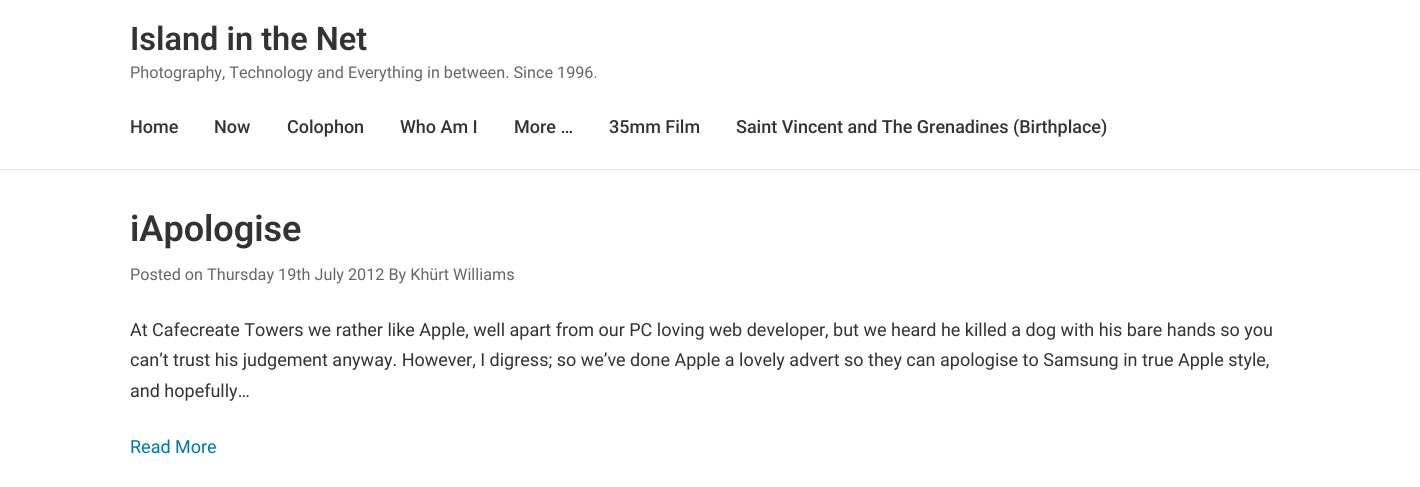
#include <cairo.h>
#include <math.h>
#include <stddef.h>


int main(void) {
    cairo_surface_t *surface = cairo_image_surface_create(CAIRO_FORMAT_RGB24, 1420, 487);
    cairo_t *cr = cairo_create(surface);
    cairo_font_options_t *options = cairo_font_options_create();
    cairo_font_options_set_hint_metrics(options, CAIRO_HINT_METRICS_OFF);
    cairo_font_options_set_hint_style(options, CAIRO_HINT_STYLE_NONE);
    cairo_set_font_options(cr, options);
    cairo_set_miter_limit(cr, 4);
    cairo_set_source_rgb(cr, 1, 1, 1);
    cairo_paint(cr);
    cairo_set_source_rgb(cr, 0.882, 0.882, 0.882);
    cairo_rectangle(cr, 0, 169, 1420, 1);
    cairo_fill(cr);
    cairo_select_font_face(cr, "Roboto SemiBold", CAIRO_FONT_SLANT_NORMAL, CAIRO_FONT_WEIGHT_NORMAL);
    cairo_set_font_size(cr, 32.5);
    cairo_set_source_rgb(cr, 0.2, 0.2, 0.2);
    cairo_move_to(cr, 130, 50);
    cairo_show_text(cr, "Island in the Net");
    cairo_select_font_face(cr, "Roboto", CAIRO_FONT_SLANT_NORMAL, CAIRO_FONT_WEIGHT_NORMAL);
    cairo_set_font_size(cr, 16.2);
    cairo_set_source_rgb(cr, 0.4, 0.4, 0.4);
    cairo_move_to(cr, 130, 78);
    cairo_show_text(cr, "Photography, Technology and Everything in between. Since 1996.");
    cairo_select_font_face(cr, "Roboto Medium", CAIRO_FONT_SLANT_NORMAL, CAIRO_FONT_WEIGHT_NORMAL);
    cairo_set_font_size(cr, 18);
    cairo_set_source_rgb(cr, 0.2, 0.2, 0.2);
    cairo_move_to(cr, 130, 133);
    cairo_show_text(cr, "Home");
    cairo_move_to(cr, 214, 133);
    cairo_show_text(cr, "Now");
    cairo_move_to(cr, 287, 133);
    cairo_show_text(cr, "Colophon");
    cairo_move_to(cr, 400, 133);
    cairo_show_text(cr, "Who Am I");
    cairo_move_to(cr, 514, 133);
    cairo_show_text(cr, "More …");
    cairo_move_to(cr, 609, 133);
    cairo_show_text(cr, "35mm Film");
    cairo_move_to(cr, 736, 133);
    cairo_show_text(cr, "Saint Vincent and The Grenadines (Birthplace)");
    cairo_select_font_face(cr, "Roboto SemiBold", CAIRO_FONT_SLANT_NORMAL, CAIRO_FONT_WEIGHT_NORMAL);
    cairo_set_font_size(cr, 36);
    cairo_move_to(cr, 130, 241);
    cairo_show_text(cr, "iApologise");
    cairo_select_font_face(cr, "Roboto", CAIRO_FONT_SLANT_NORMAL, CAIRO_FONT_WEIGHT_NORMAL);
    cairo_set_font_size(cr, 16.2);
    cairo_set_source_rgb(cr, 0.4, 0.4, 0.4);
    cairo_move_to(cr, 130, 280);
    cairo_show_text(cr, "Posted on Thursday 19th July 2012 By Khürt Williams");
    cairo_set_font_size(cr, 18);
    cairo_set_source_rgb(cr, 0.2, 0.2, 0.2);
    cairo_move_to(cr, 130, 336);
    cairo_show_text(cr, "At Cafecreate Towers we rather like Apple, well apart from our PC loving web developer, but we heard he killed a dog with his bare hands so you");
    cairo_move_to(cr, 130, 366);
    cairo_show_text(cr, "can’t trust his judgement anyway. However, I digress; so we’ve done Apple a lovely advert so they can apologise to Samsung in true Apple style,");
    cairo_move_to(cr, 130, 397);
    cairo_show_text(cr, "and hopefully…");
    cairo_set_source_rgb(cr, 0, 0.451, 0.667);
    cairo_move_to(cr, 130, 453);
    cairo_show_text(cr, "Read More");
    cairo_surface_write_to_png(surface, "page.png");
    cairo_font_options_destroy(options);
    cairo_destroy(cr);
    cairo_surface_destroy(surface);
    return 0;
}
